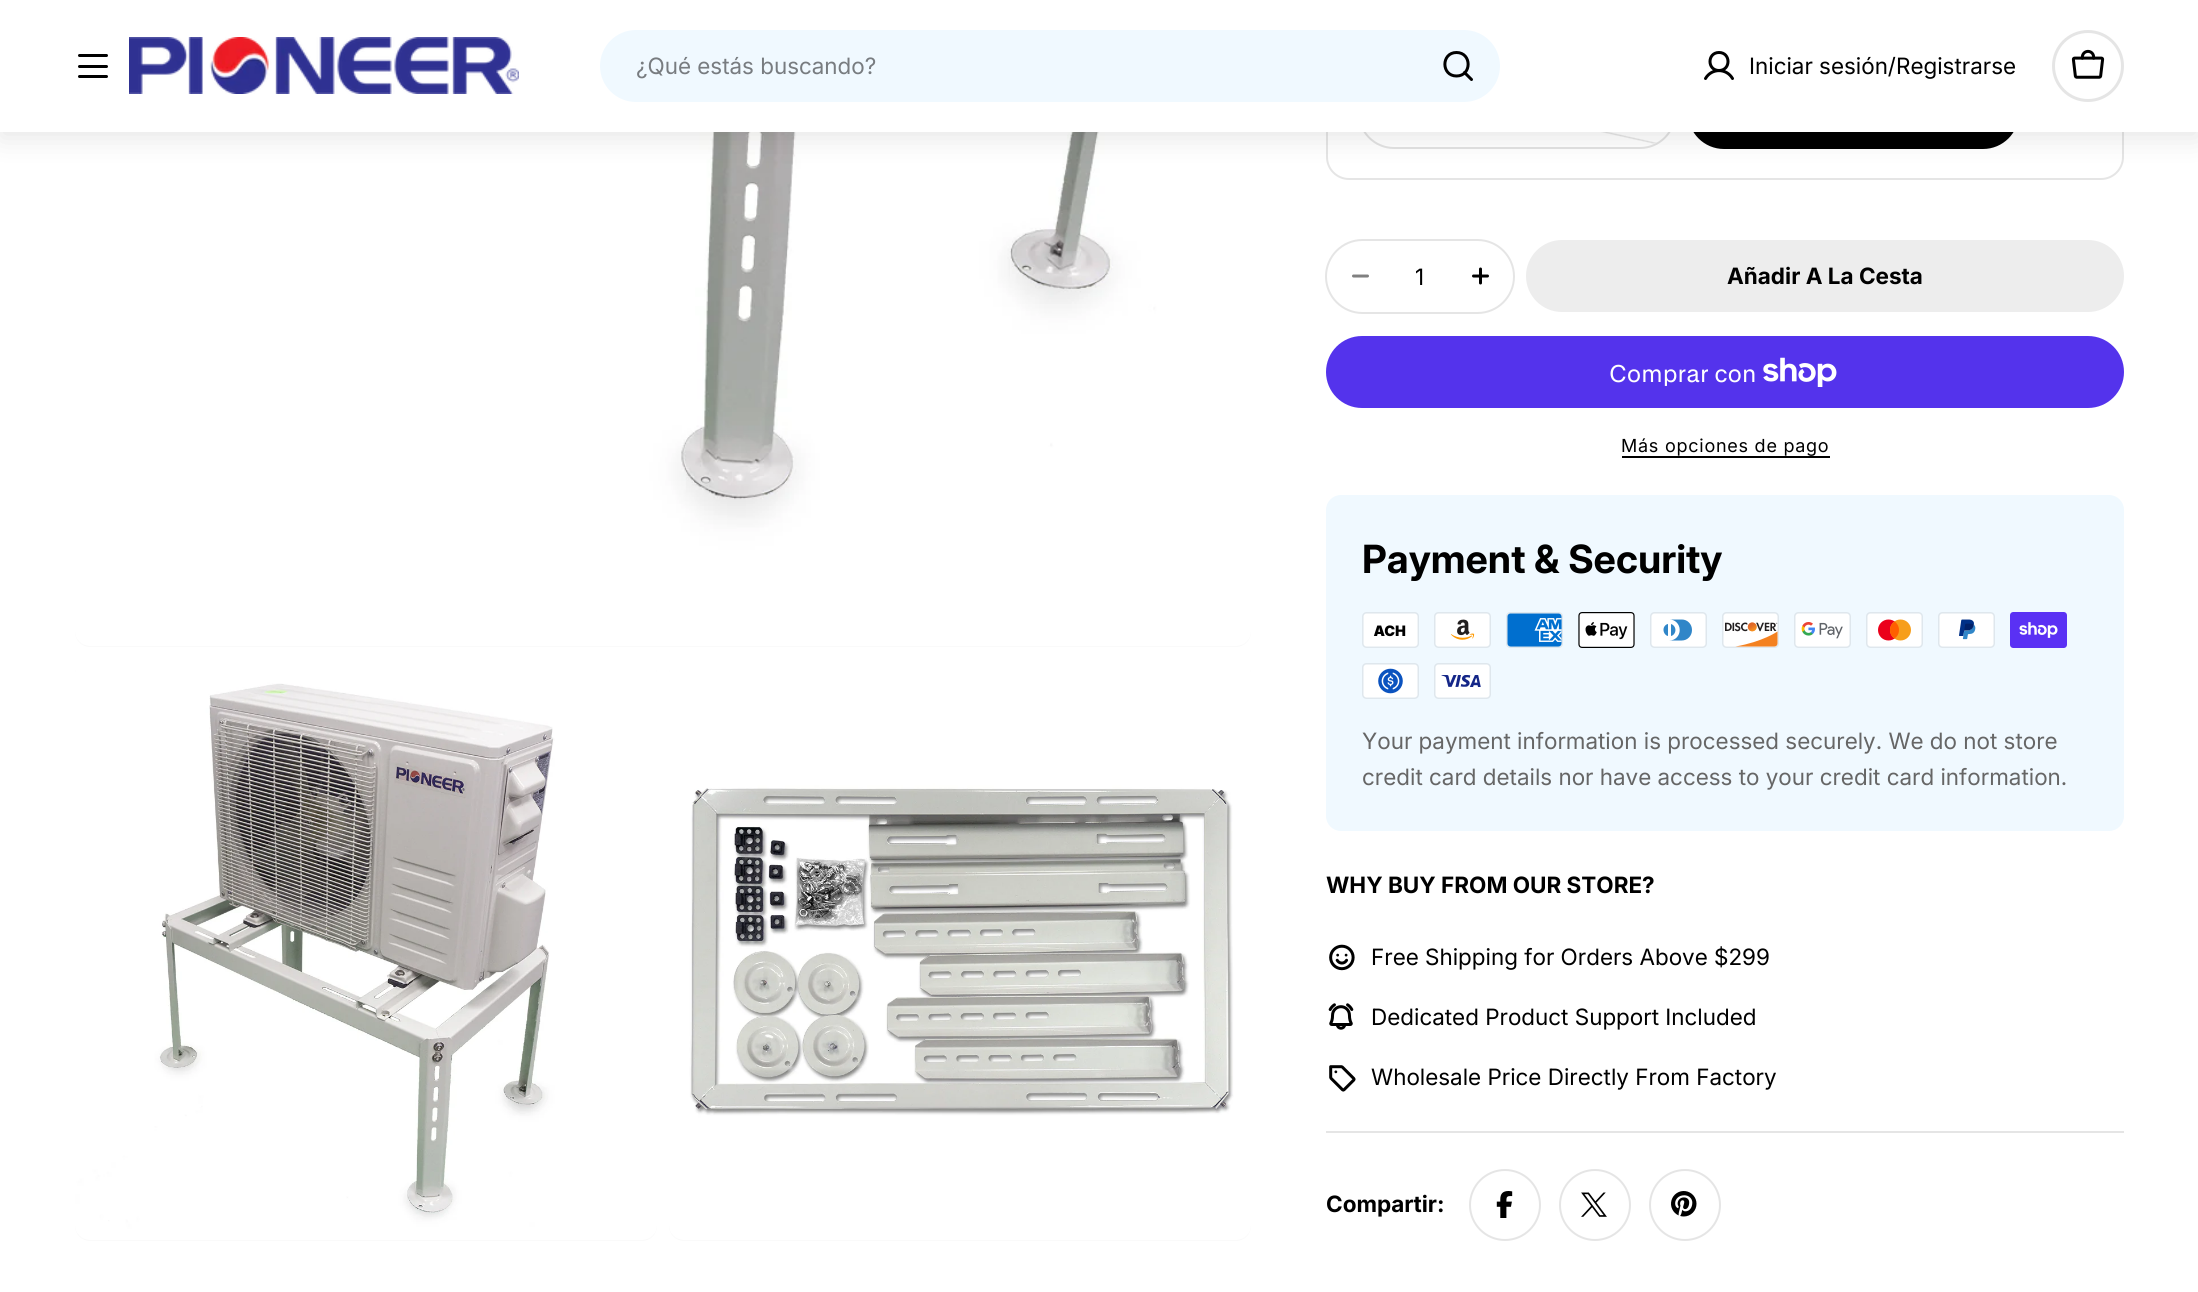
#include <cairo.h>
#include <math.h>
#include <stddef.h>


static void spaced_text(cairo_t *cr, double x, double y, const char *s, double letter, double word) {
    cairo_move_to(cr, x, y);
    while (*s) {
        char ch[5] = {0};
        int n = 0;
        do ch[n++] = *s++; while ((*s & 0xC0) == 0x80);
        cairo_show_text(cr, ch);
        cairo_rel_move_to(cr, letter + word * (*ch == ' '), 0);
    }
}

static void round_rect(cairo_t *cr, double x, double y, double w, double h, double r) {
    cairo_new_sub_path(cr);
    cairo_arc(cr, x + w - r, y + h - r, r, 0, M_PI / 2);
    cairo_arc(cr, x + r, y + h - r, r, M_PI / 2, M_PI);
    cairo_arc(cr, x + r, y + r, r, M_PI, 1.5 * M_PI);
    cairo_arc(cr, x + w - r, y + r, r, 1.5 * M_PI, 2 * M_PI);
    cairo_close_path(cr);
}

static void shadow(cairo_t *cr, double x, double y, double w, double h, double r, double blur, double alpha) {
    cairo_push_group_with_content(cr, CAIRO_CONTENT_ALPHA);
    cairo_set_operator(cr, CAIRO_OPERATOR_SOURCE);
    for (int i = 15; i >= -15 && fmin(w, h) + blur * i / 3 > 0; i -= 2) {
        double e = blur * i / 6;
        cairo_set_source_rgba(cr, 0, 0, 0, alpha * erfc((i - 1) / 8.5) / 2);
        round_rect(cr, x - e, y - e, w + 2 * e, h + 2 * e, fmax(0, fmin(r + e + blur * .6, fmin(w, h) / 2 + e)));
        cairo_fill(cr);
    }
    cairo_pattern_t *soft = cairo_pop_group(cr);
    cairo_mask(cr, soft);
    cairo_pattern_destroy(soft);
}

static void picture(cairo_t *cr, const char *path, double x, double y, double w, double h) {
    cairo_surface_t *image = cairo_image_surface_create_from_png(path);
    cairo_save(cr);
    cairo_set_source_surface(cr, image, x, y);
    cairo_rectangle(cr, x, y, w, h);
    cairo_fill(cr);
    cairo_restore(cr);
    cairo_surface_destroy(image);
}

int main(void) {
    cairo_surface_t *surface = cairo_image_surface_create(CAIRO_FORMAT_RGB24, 2198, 1292);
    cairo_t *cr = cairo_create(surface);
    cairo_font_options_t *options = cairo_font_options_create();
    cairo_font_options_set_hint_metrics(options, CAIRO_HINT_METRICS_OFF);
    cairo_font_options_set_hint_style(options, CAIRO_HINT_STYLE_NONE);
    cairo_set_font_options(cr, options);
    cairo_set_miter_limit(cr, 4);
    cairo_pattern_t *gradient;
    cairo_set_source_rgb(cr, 1, 1, 1);
    cairo_paint(cr);
    cairo_set_source_rgb(cr, 0.98, 0.98, 0.98);
    round_rect(cr, 75, -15, 1176, 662, 15);
    cairo_fill(cr);
    picture(cr, "img3.png", 75, 132, 1176, 514);
    round_rect(cr, 1327, -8, 796, 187, 22);
    cairo_set_source_rgb(cr, 0.898, 0.898, 0.898);
    cairo_stroke(cr);
    round_rect(cr, 1359, 78, 316, 70, 35);
    cairo_set_source_rgb(cr, 0.886, 0.886, 0.886);
    cairo_stroke(cr);
    gradient = cairo_pattern_create_linear(1531, 47, 1502, 178);
    cairo_pattern_add_color_stop_rgba(gradient, 0.49, 0.886, 0.886, 0.886, 0);
    cairo_pattern_add_color_stop_rgba(gradient, 0.5, 0.886, 0.886, 0.886, 1);
    cairo_pattern_add_color_stop_rgba(gradient, 0.51, 0.886, 0.886, 0.886, 0);
    cairo_set_source(cr, gradient);
    cairo_pattern_destroy(gradient);
    round_rect(cr, 1359, 78, 315, 69, 34.5);
    cairo_fill(cr);
    cairo_set_source_rgb(cr, 0, 0, 0);
    round_rect(cr, 1689, 78, 329, 70, 35);
    cairo_fill_preserve(cr);
    cairo_stroke(cr);
    cairo_set_source_rgb(cr, 0, 0, 0);
    shadow(cr, 0, 6, 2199, 132, 0, 13.5, 0.1);
    cairo_set_source_rgb(cr, 1, 1, 1);
    cairo_rectangle(cr, 0, 0, 2198, 132);
    cairo_fill(cr);
    cairo_set_source_rgb(cr, 0, 0, 0);
    round_rect(cr, 78, 65, 30, 3, 1.5);
    cairo_fill(cr);
    round_rect(cr, 78, 54, 30, 3, 1.5);
    cairo_fill(cr);
    round_rect(cr, 78, 75, 30, 3, 1.5);
    cairo_fill(cr);
    picture(cr, "img1.png", 129, 37, 390, 57);
    cairo_set_source_rgb(cr, 0.941, 0.973, 1);
    round_rect(cr, 600, 30, 900, 72, 36);
    cairo_fill(cr);
    cairo_select_font_face(cr, "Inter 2", CAIRO_FONT_SLANT_NORMAL, CAIRO_FONT_WEIGHT_NORMAL);
    cairo_set_font_size(cr, 22.5);
    cairo_set_source_rgb(cr, 0.471, 0.486, 0.502);
    cairo_move_to(cr, 636, 74);
    cairo_show_text(cr, "¿Qué estás buscando?");
    cairo_new_path(cr);
    cairo_move_to(cr, 1456.5, 76);
    cairo_curve_to(cr, 1472, 76, 1472, 52.5, 1456.5, 52.5);
    cairo_curve_to(cr, 1441, 52.5, 1441, 76, 1456.5, 76);
    cairo_close_path(cr);
    cairo_move_to(cr, 1464.5, 72.5);
    cairo_line_to(cr, 1471.5, 79.5);
    cairo_set_source_rgb(cr, 0, 0, 0);
    cairo_set_line_width(cr, 3);
    cairo_set_line_cap(cr, CAIRO_LINE_CAP_ROUND);
    cairo_set_line_join(cr, CAIRO_LINE_JOIN_ROUND);
    cairo_stroke(cr);
    cairo_new_path(cr);
    cairo_move_to(cr, 1719, 70.5);
    cairo_curve_to(cr, 1731, 70.5, 1731, 52.5, 1719, 52.5);
    cairo_curve_to(cr, 1707, 52.5, 1707, 70.5, 1719, 70.5);
    cairo_close_path(cr);
    cairo_move_to(cr, 1705.5, 78.5);
    cairo_curve_to(cr, 1711.5, 68, 1726.5, 68, 1732.5, 78.5);
    cairo_stroke(cr);
    cairo_move_to(cr, 1749, 74);
    cairo_show_text(cr, "Iniciar sesión/Registrarse");
    cairo_new_path(cr);
    cairo_arc(cr, 2088, 66, 34.5, 0, 2 * M_PI);
    cairo_set_source_rgb(cr, 0.898, 0.898, 0.898);
    cairo_set_line_cap(cr, CAIRO_LINE_CAP_BUTT);
    cairo_set_line_join(cr, CAIRO_LINE_JOIN_MITER);
    cairo_stroke(cr);
    picture(cr, "img2.png", 2071, 49, 34, 30);
    cairo_set_source_rgb(cr, 0.98, 0.98, 0.98);
    round_rect(cr, 75, 659, 582, 582, 15);
    cairo_fill(cr);
    picture(cr, "img4.png", 75, 659, 582, 581);
    round_rect(cr, 669, 659, 582, 582, 15);
    cairo_fill(cr);
    picture(cr, "img5.png", 669, 659, 582, 581);
    round_rect(cr, 1326, 240, 188, 73, 36.5);
    cairo_set_source_rgb(cr, 0.898, 0.898, 0.898);
    cairo_set_line_width(cr, 2);
    cairo_stroke(cr);
    cairo_new_path(cr);
    cairo_move_to(cr, 1353.5, 276);
    cairo_line_to(cr, 1367.5, 276);
    cairo_set_source_rgb(cr, 0.502, 0.502, 0.502);
    cairo_set_line_width(cr, 3);
    cairo_set_line_cap(cr, CAIRO_LINE_CAP_ROUND);
    cairo_set_line_join(cr, CAIRO_LINE_JOIN_ROUND);
    cairo_stroke(cr);
    cairo_set_source_rgb(cr, 0, 0, 0);
    cairo_move_to(cr, 1415, 285);
    cairo_show_text(cr, "1");
    cairo_new_path(cr);
    cairo_move_to(cr, 1473.5, 276);
    cairo_line_to(cr, 1487.5, 276);
    cairo_move_to(cr, 1480.5, 269);
    cairo_line_to(cr, 1480.5, 283);
    cairo_stroke(cr);
    cairo_set_source_rgb(cr, 0.929, 0.929, 0.929);
    round_rect(cr, 1527, 241, 596, 70, 35);
    cairo_fill_preserve(cr);
    cairo_set_line_width(cr, 2);
    cairo_set_line_cap(cr, CAIRO_LINE_CAP_BUTT);
    cairo_set_line_join(cr, CAIRO_LINE_JOIN_MITER);
    cairo_stroke(cr);
    cairo_select_font_face(cr, "Inter", CAIRO_FONT_SLANT_NORMAL, CAIRO_FONT_WEIGHT_BOLD);
    cairo_set_source_rgb(cr, 0, 0, 0);
    cairo_move_to(cr, 1727, 284);
    cairo_show_text(cr, "Añadir A La Cesta");
    cairo_set_source_rgb(cr, 0.329, 0.2, 0.922);
    round_rect(cr, 1326, 336, 798, 72, 36);
    cairo_fill(cr);
    cairo_select_font_face(cr, "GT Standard", CAIRO_FONT_SLANT_NORMAL, CAIRO_FONT_WEIGHT_NORMAL);
    cairo_set_font_size(cr, 24);
    cairo_set_source_rgb(cr, 1, 1, 1);
    cairo_move_to(cr, 1609, 382);
    cairo_show_text(cr, "Comprar con");
    picture(cr, "img6.png", 1763, 357, 74, 30);
    cairo_select_font_face(cr, "Inter", CAIRO_FONT_SLANT_NORMAL, CAIRO_FONT_WEIGHT_NORMAL);
    cairo_set_font_size(cr, 18);
    cairo_set_source_rgb(cr, 0, 0, 0);
    spaced_text(cr, 1621, 452, "Más opciones de pago", 0.75, 0);
    cairo_rectangle(cr, 1622, 456, 208, 2);
    cairo_fill(cr);
    cairo_set_source_rgb(cr, 0.941, 0.973, 1);
    round_rect(cr, 1326, 495, 798, 336, 15);
    cairo_fill(cr);
    cairo_select_font_face(cr, "Inter 2", CAIRO_FONT_SLANT_NORMAL, CAIRO_FONT_WEIGHT_BOLD);
    cairo_set_font_size(cr, 38.9);
    cairo_set_source_rgb(cr, 0, 0, 0);
    cairo_move_to(cr, 1362, 573);
    cairo_show_text(cr, "Payment & Security");
    picture(cr, "img7.png", 1362, 612, 57, 36);
    picture(cr, "img8.png", 1434, 612, 57, 36);
    picture(cr, "img9.png", 1506, 612, 57, 36);
    picture(cr, "img10.png", 1578, 612, 57, 36);
    picture(cr, "img11.png", 1650, 612, 57, 36);
    picture(cr, "img12.png", 1722, 612, 57, 36);
    picture(cr, "img13.png", 1794, 612, 57, 36);
    picture(cr, "img14.png", 1866, 612, 57, 36);
    picture(cr, "img15.png", 1938, 612, 57, 36);
    picture(cr, "img16.png", 2010, 612, 57, 36);
    picture(cr, "img17.png", 1362, 663, 57, 36);
    picture(cr, "img18.png", 1434, 663, 57, 36);
    cairo_select_font_face(cr, "Inter 2", CAIRO_FONT_SLANT_NORMAL, CAIRO_FONT_WEIGHT_NORMAL);
    cairo_set_font_size(cr, 22.5);
    cairo_set_source_rgb(cr, 0.4, 0.4, 0.4);
    cairo_move_to(cr, 1362, 749);
    cairo_show_text(cr, "Your payment information is processed securely. We do not store");
    cairo_move_to(cr, 1362, 785);
    cairo_show_text(cr, "credit card details nor have access to your credit card information.");
    cairo_select_font_face(cr, "Inter", CAIRO_FONT_SLANT_NORMAL, CAIRO_FONT_WEIGHT_BOLD);
    cairo_set_source_rgb(cr, 0, 0, 0);
    cairo_move_to(cr, 1326, 893);
    cairo_show_text(cr, "WHY BUY FROM OUR STORE?");
    picture(cr, "img19.png", 1329, 944, 26, 27);
    cairo_select_font_face(cr, "Inter 2", CAIRO_FONT_SLANT_NORMAL, CAIRO_FONT_WEIGHT_NORMAL);
    cairo_move_to(cr, 1371, 965);
    cairo_show_text(cr, "Free Shipping for Orders Above $299");
    picture(cr, "img20.png", 1328, 1003, 26, 27);
    cairo_move_to(cr, 1371, 1025);
    cairo_show_text(cr, "Dedicated Product Support Included");
    picture(cr, "img21.png", 1329, 1065, 27, 27);
    cairo_move_to(cr, 1371, 1085);
    cairo_show_text(cr, "Wholesale Price Directly From Factory");
    cairo_set_source_rgb(cr, 0.898, 0.898, 0.898);
    cairo_rectangle(cr, 1326, 1131, 798, 2);
    cairo_fill(cr);
    cairo_select_font_face(cr, "Inter", CAIRO_FONT_SLANT_NORMAL, CAIRO_FONT_WEIGHT_BOLD);
    cairo_set_source_rgb(cr, 0, 0, 0);
    cairo_move_to(cr, 1326, 1212);
    cairo_show_text(cr, "Compartir:");
    cairo_new_path(cr);
    cairo_arc(cr, 1505, 1205, 35, 0, 2 * M_PI);
    cairo_set_source_rgb(cr, 0.898, 0.898, 0.898);
    cairo_stroke(cr);
    picture(cr, "img22.png", 1496, 1191, 17, 27);
    cairo_arc(cr, 1595, 1205, 35, 0, 2 * M_PI);
    cairo_stroke(cr);
    picture(cr, "img23.png", 1581, 1192, 26, 25);
    cairo_arc(cr, 1685, 1205, 35, 0, 2 * M_PI);
    cairo_stroke(cr);
    picture(cr, "img24.png", 1671, 1191, 26, 26);
    cairo_surface_write_to_png(surface, "page.png");
    cairo_font_options_destroy(options);
    cairo_destroy(cr);
    cairo_surface_destroy(surface);
    return 0;
}
